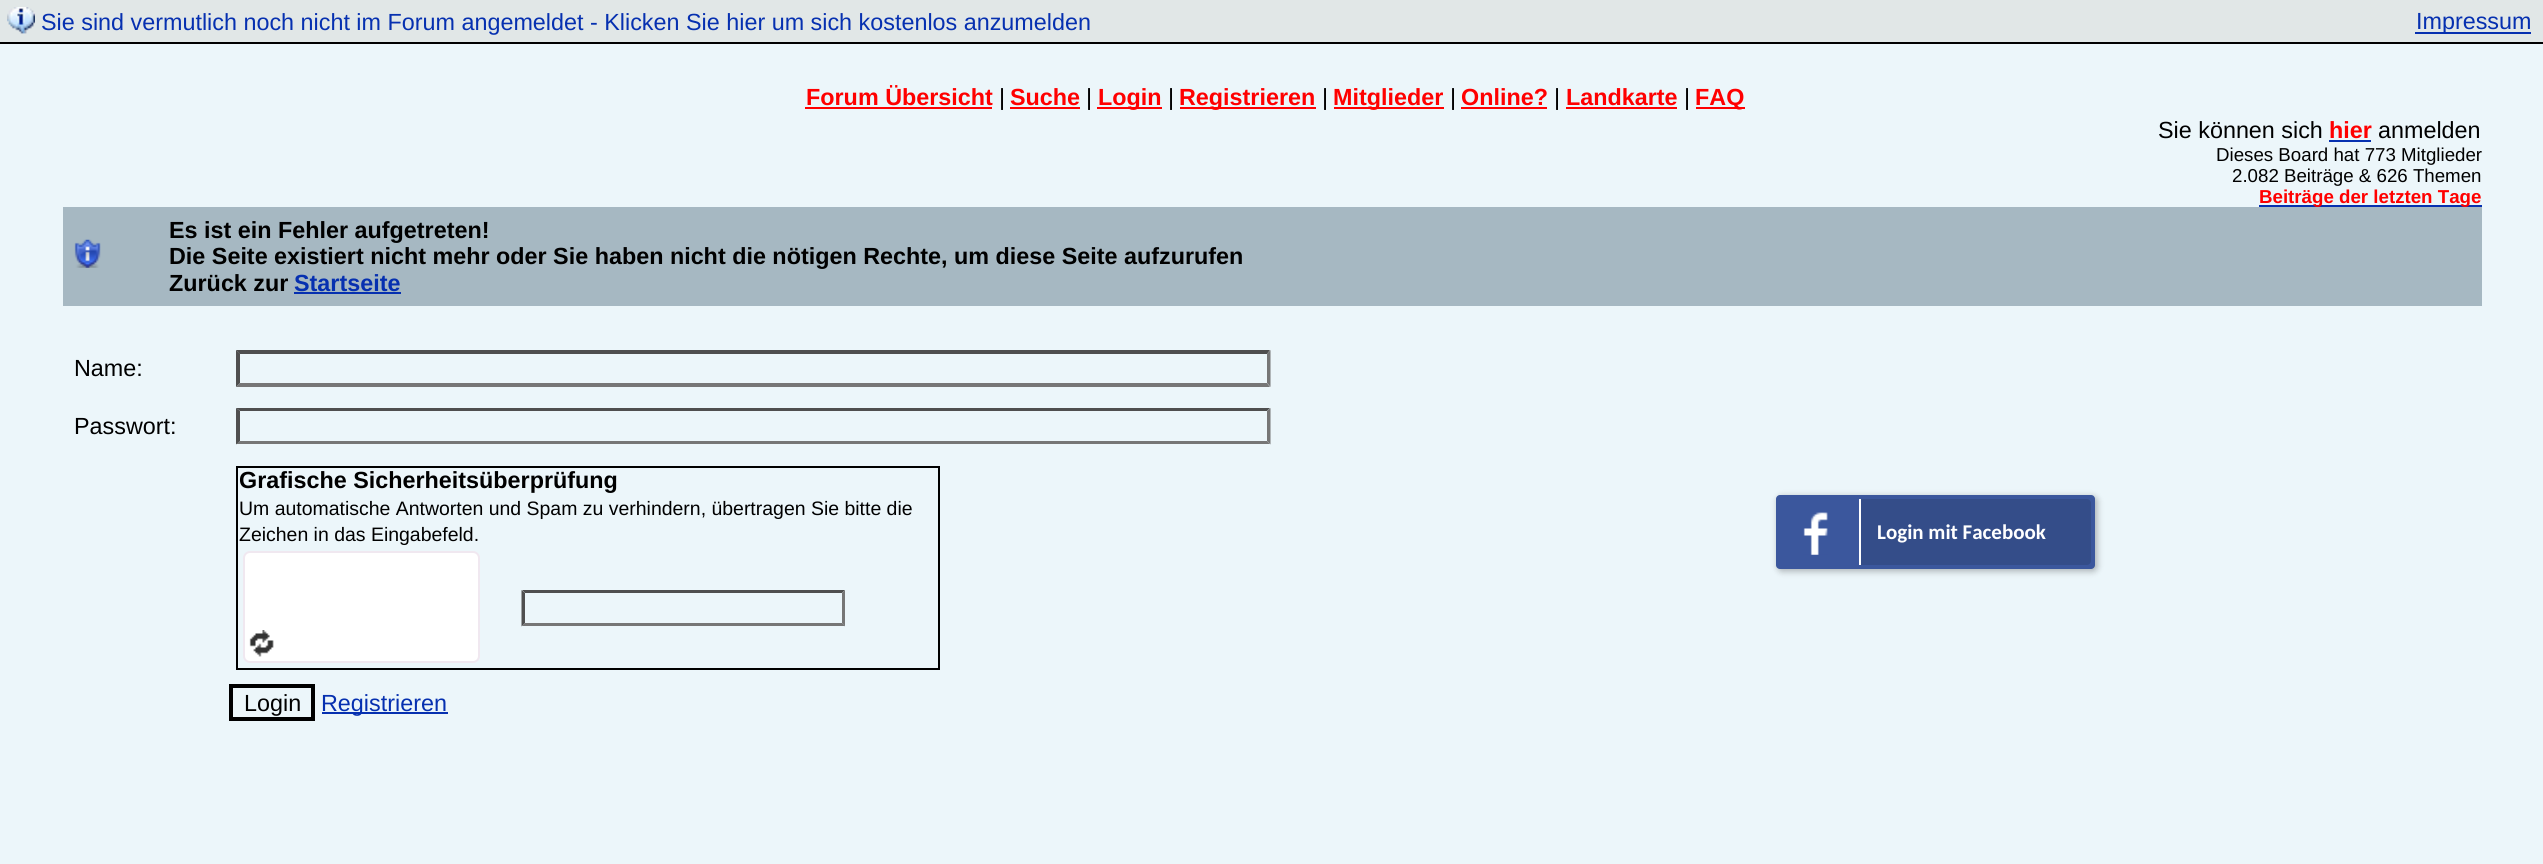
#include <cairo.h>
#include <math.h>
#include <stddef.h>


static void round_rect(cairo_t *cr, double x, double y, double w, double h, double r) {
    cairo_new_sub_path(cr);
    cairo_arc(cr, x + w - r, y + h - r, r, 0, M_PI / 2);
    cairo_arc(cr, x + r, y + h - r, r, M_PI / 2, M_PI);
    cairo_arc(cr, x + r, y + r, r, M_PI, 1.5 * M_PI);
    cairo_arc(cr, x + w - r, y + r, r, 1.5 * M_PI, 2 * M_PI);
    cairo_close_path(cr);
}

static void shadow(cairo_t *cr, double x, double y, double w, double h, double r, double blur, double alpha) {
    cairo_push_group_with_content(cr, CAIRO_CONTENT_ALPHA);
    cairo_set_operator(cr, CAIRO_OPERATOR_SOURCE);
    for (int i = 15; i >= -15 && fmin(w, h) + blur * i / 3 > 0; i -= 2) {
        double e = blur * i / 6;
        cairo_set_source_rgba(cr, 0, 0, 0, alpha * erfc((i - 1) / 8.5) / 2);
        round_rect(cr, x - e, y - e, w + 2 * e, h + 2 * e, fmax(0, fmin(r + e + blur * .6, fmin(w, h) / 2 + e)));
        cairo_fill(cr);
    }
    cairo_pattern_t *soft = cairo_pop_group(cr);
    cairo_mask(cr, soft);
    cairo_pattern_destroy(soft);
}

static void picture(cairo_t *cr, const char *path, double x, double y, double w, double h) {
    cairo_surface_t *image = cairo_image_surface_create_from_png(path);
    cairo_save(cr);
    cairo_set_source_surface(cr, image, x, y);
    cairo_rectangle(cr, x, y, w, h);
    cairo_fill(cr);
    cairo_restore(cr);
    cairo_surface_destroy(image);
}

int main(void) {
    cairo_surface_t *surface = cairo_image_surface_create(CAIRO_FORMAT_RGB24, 2543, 864);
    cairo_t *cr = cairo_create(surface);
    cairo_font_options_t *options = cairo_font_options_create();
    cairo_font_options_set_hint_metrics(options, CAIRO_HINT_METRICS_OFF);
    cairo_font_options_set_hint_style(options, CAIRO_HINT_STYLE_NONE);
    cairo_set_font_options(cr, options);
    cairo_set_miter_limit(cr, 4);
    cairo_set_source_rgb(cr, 0.925, 0.961, 0.98);
    cairo_paint(cr);
    cairo_set_source_rgb(cr, 0.882, 0.906, 0.906);
    cairo_rectangle(cr, 0, 0, 2543, 42);
    cairo_fill(cr);
    cairo_set_source_rgb(cr, 0, 0, 0);
    cairo_rectangle(cr, 0, 42, 2543, 2);
    cairo_fill(cr);
    picture(cr, "img1.png", 7, 7, 28, 27);
    cairo_select_font_face(cr, "Liberation Sans", CAIRO_FONT_SLANT_NORMAL, CAIRO_FONT_WEIGHT_NORMAL);
    cairo_set_font_size(cr, 23.35);
    cairo_set_source_rgb(cr, 0.027, 0.188, 0.69);
    cairo_move_to(cr, 41, 30);
    cairo_show_text(cr, "Sie sind vermutlich noch nicht im Forum angemeldet - Klicken Sie hier um sich kostenlos anzumelden");
    cairo_rectangle(cr, 2415, 32, 116, 2);
    cairo_fill(cr);
    cairo_move_to(cr, 2416, 29);
    cairo_show_text(cr, "Impressum");
    cairo_select_font_face(cr, "Liberation Sans", CAIRO_FONT_SLANT_NORMAL, CAIRO_FONT_WEIGHT_BOLD);
    cairo_set_source_rgb(cr, 1, 0, 0);
    cairo_move_to(cr, 806, 105);
    cairo_show_text(cr, "Forum Übersicht");
    cairo_rectangle(cr, 805, 107, 187, 2);
    cairo_fill(cr);
    cairo_select_font_face(cr, "Liberation Sans", CAIRO_FONT_SLANT_NORMAL, CAIRO_FONT_WEIGHT_NORMAL);
    cairo_set_source_rgb(cr, 0, 0, 0);
    cairo_move_to(cr, 999, 105);
    cairo_show_text(cr, "|");
    cairo_select_font_face(cr, "Liberation Sans", CAIRO_FONT_SLANT_NORMAL, CAIRO_FONT_WEIGHT_BOLD);
    cairo_set_source_rgb(cr, 1, 0, 0);
    cairo_move_to(cr, 1010, 105);
    cairo_show_text(cr, "Suche");
    cairo_rectangle(cr, 1010, 107, 70, 2);
    cairo_fill(cr);
    cairo_select_font_face(cr, "Liberation Sans", CAIRO_FONT_SLANT_NORMAL, CAIRO_FONT_WEIGHT_NORMAL);
    cairo_set_source_rgb(cr, 0, 0, 0);
    cairo_move_to(cr, 1086, 105);
    cairo_show_text(cr, "|");
    cairo_set_source_rgb(cr, 1, 0, 0);
    cairo_rectangle(cr, 1097, 107, 65, 2);
    cairo_fill(cr);
    cairo_select_font_face(cr, "Liberation Sans", CAIRO_FONT_SLANT_NORMAL, CAIRO_FONT_WEIGHT_BOLD);
    cairo_move_to(cr, 1098, 105);
    cairo_show_text(cr, "Login");
    cairo_select_font_face(cr, "Liberation Sans", CAIRO_FONT_SLANT_NORMAL, CAIRO_FONT_WEIGHT_NORMAL);
    cairo_set_source_rgb(cr, 0, 0, 0);
    cairo_move_to(cr, 1168, 105);
    cairo_show_text(cr, "|");
    cairo_set_source_rgb(cr, 1, 0, 0);
    cairo_rectangle(cr, 1180, 107, 136, 2);
    cairo_fill(cr);
    cairo_select_font_face(cr, "Liberation Sans", CAIRO_FONT_SLANT_NORMAL, CAIRO_FONT_WEIGHT_BOLD);
    cairo_move_to(cr, 1179, 105);
    cairo_show_text(cr, "Registrieren");
    cairo_select_font_face(cr, "Liberation Sans", CAIRO_FONT_SLANT_NORMAL, CAIRO_FONT_WEIGHT_NORMAL);
    cairo_set_source_rgb(cr, 0, 0, 0);
    cairo_move_to(cr, 1322, 105);
    cairo_show_text(cr, "|");
    cairo_set_source_rgb(cr, 1, 0, 0);
    cairo_rectangle(cr, 1334, 107, 110, 2);
    cairo_fill(cr);
    cairo_select_font_face(cr, "Liberation Sans", CAIRO_FONT_SLANT_NORMAL, CAIRO_FONT_WEIGHT_BOLD);
    cairo_move_to(cr, 1333, 105);
    cairo_show_text(cr, "Mitglieder");
    cairo_select_font_face(cr, "Liberation Sans", CAIRO_FONT_SLANT_NORMAL, CAIRO_FONT_WEIGHT_NORMAL);
    cairo_set_source_rgb(cr, 0, 0, 0);
    cairo_move_to(cr, 1450, 105);
    cairo_show_text(cr, "|");
    cairo_select_font_face(cr, "Liberation Sans", CAIRO_FONT_SLANT_NORMAL, CAIRO_FONT_WEIGHT_BOLD);
    cairo_set_source_rgb(cr, 1, 0, 0);
    cairo_move_to(cr, 1461, 105);
    cairo_show_text(cr, "Online?");
    cairo_rectangle(cr, 1461, 107, 86, 2);
    cairo_fill(cr);
    cairo_select_font_face(cr, "Liberation Sans", CAIRO_FONT_SLANT_NORMAL, CAIRO_FONT_WEIGHT_NORMAL);
    cairo_set_source_rgb(cr, 0, 0, 0);
    cairo_move_to(cr, 1554, 105);
    cairo_show_text(cr, "|");
    cairo_select_font_face(cr, "Liberation Sans", CAIRO_FONT_SLANT_NORMAL, CAIRO_FONT_WEIGHT_BOLD);
    cairo_set_source_rgb(cr, 1, 0, 0);
    cairo_move_to(cr, 1566, 105);
    cairo_show_text(cr, "Landkarte");
    cairo_rectangle(cr, 1566, 107, 111, 2);
    cairo_fill(cr);
    cairo_select_font_face(cr, "Liberation Sans", CAIRO_FONT_SLANT_NORMAL, CAIRO_FONT_WEIGHT_NORMAL);
    cairo_set_source_rgb(cr, 0, 0, 0);
    cairo_move_to(cr, 1684, 105);
    cairo_show_text(cr, "|");
    cairo_set_source_rgb(cr, 1, 0, 0);
    cairo_rectangle(cr, 1696, 107, 49, 2);
    cairo_fill(cr);
    cairo_select_font_face(cr, "Liberation Sans", CAIRO_FONT_SLANT_NORMAL, CAIRO_FONT_WEIGHT_BOLD);
    cairo_move_to(cr, 1695, 105);
    cairo_show_text(cr, "FAQ");
    cairo_select_font_face(cr, "Liberation Sans", CAIRO_FONT_SLANT_NORMAL, CAIRO_FONT_WEIGHT_NORMAL);
    cairo_set_source_rgb(cr, 0, 0, 0);
    cairo_move_to(cr, 2158, 138);
    cairo_show_text(cr, "Sie können sich");
    cairo_select_font_face(cr, "Liberation Sans", CAIRO_FONT_SLANT_NORMAL, CAIRO_FONT_WEIGHT_BOLD);
    cairo_set_source_rgb(cr, 1, 0, 0);
    cairo_move_to(cr, 2329, 138);
    cairo_show_text(cr, "hier");
    cairo_set_source_rgb(cr, 0.027, 0.188, 0.69);
    cairo_rectangle(cr, 2329, 140, 42, 2);
    cairo_fill(cr);
    cairo_select_font_face(cr, "Liberation Sans", CAIRO_FONT_SLANT_NORMAL, CAIRO_FONT_WEIGHT_NORMAL);
    cairo_set_source_rgb(cr, 0, 0, 0);
    cairo_move_to(cr, 2378, 138);
    cairo_show_text(cr, "anmelden");
    cairo_set_font_size(cr, 18.7);
    cairo_move_to(cr, 2216, 161);
    cairo_show_text(cr, "Dieses Board hat 773 Mitglieder");
    cairo_move_to(cr, 2232, 182);
    cairo_show_text(cr, "2.082 Beiträge & 626 Themen");
    cairo_set_source_rgb(cr, 0.027, 0.188, 0.69);
    cairo_rectangle(cr, 2259, 205, 223, 2);
    cairo_fill(cr);
    cairo_select_font_face(cr, "Liberation Sans", CAIRO_FONT_SLANT_NORMAL, CAIRO_FONT_WEIGHT_BOLD);
    cairo_set_source_rgb(cr, 1, 0, 0);
    cairo_move_to(cr, 2259, 203);
    cairo_show_text(cr, "Beiträge der letzten Tage");
    cairo_set_source_rgb(cr, 0.651, 0.722, 0.761);
    cairo_rectangle(cr, 63, 207, 2419, 99);
    cairo_fill(cr);
    picture(cr, "img2.png", 74, 239, 27, 29);
    cairo_set_font_size(cr, 23.35);
    cairo_set_source_rgb(cr, 0, 0, 0);
    cairo_move_to(cr, 169, 238);
    cairo_show_text(cr, "Es ist ein Fehler aufgetreten!");
    cairo_move_to(cr, 169, 264);
    cairo_show_text(cr, "Die Seite existiert nicht mehr oder Sie haben nicht die nötigen Rechte, um diese Seite aufzurufen");
    cairo_move_to(cr, 169, 291);
    cairo_show_text(cr, "Zurück zur");
    cairo_set_source_rgb(cr, 0.027, 0.188, 0.69);
    cairo_move_to(cr, 294, 291);
    cairo_show_text(cr, "Startseite");
    cairo_rectangle(cr, 294, 292, 107, 2);
    cairo_fill(cr);
    cairo_select_font_face(cr, "Liberation Sans", CAIRO_FONT_SLANT_NORMAL, CAIRO_FONT_WEIGHT_NORMAL);
    cairo_set_source_rgb(cr, 0, 0, 0);
    cairo_move_to(cr, 74, 376);
    cairo_show_text(cr, "Name:");
    cairo_set_source_rgb(cr, 0.31, 0.31, 0.31);
    cairo_new_path(cr);
    cairo_move_to(cr, 236, 350);
    cairo_line_to(cr, 1270, 350);
    cairo_line_to(cr, 1267, 354);
    cairo_line_to(cr, 240, 354);
    cairo_close_path(cr);
    cairo_fill(cr);
    cairo_set_source_rgb(cr, 0.463, 0.463, 0.463);
    cairo_new_path(cr);
    cairo_move_to(cr, 1270.5, 350);
    cairo_line_to(cr, 1270.5, 387);
    cairo_line_to(cr, 1267, 383);
    cairo_line_to(cr, 1267, 353.5);
    cairo_close_path(cr);
    cairo_fill(cr);
    cairo_new_path(cr);
    cairo_move_to(cr, 1270, 387);
    cairo_line_to(cr, 236, 387);
    cairo_line_to(cr, 240, 383);
    cairo_line_to(cr, 1267, 383);
    cairo_close_path(cr);
    cairo_fill(cr);
    cairo_set_source_rgb(cr, 0.31, 0.31, 0.31);
    cairo_new_path(cr);
    cairo_move_to(cr, 236, 387);
    cairo_line_to(cr, 236, 350);
    cairo_line_to(cr, 240, 353.5);
    cairo_line_to(cr, 240, 383);
    cairo_close_path(cr);
    cairo_fill(cr);
    cairo_set_source_rgb(cr, 0, 0, 0);
    cairo_move_to(cr, 74, 434);
    cairo_show_text(cr, "Passwort:");
    cairo_set_source_rgb(cr, 0.31, 0.31, 0.31);
    cairo_new_path(cr);
    cairo_move_to(cr, 236, 408);
    cairo_line_to(cr, 1270, 408);
    cairo_line_to(cr, 1267, 411);
    cairo_line_to(cr, 240, 411);
    cairo_close_path(cr);
    cairo_fill(cr);
    cairo_set_source_rgb(cr, 0.463, 0.463, 0.463);
    cairo_new_path(cr);
    cairo_move_to(cr, 1270.5, 408);
    cairo_line_to(cr, 1270.5, 444.5);
    cairo_line_to(cr, 1267, 441);
    cairo_line_to(cr, 1267, 411);
    cairo_close_path(cr);
    cairo_fill(cr);
    cairo_new_path(cr);
    cairo_move_to(cr, 1270, 444);
    cairo_line_to(cr, 236, 444);
    cairo_line_to(cr, 240, 441);
    cairo_line_to(cr, 1267, 441);
    cairo_close_path(cr);
    cairo_fill(cr);
    cairo_set_source_rgb(cr, 0.31, 0.31, 0.31);
    cairo_new_path(cr);
    cairo_move_to(cr, 236, 444.5);
    cairo_line_to(cr, 236, 408);
    cairo_line_to(cr, 240, 411);
    cairo_line_to(cr, 240, 441);
    cairo_close_path(cr);
    cairo_fill(cr);
    cairo_rectangle(cr, 237, 467, 702, 202);
    cairo_set_source_rgb(cr, 0, 0, 0);
    cairo_stroke(cr);
    cairo_select_font_face(cr, "Liberation Sans", CAIRO_FONT_SLANT_NORMAL, CAIRO_FONT_WEIGHT_BOLD);
    cairo_move_to(cr, 239, 488);
    cairo_show_text(cr, "Grafische Sicherheitsüberprüfung");
    cairo_select_font_face(cr, "Liberation Sans", CAIRO_FONT_SLANT_NORMAL, CAIRO_FONT_WEIGHT_NORMAL);
    cairo_set_font_size(cr, 19.45);
    cairo_move_to(cr, 239, 515);
    cairo_show_text(cr, "Um automatische Antworten und Spam zu verhindern, übertragen Sie bitte die");
    cairo_move_to(cr, 239, 541);
    cairo_show_text(cr, "Zeichen in das Eingabefeld.");
    cairo_set_source_rgb(cr, 1, 1, 1);
    round_rect(cr, 244, 552, 235, 110, 6);
    cairo_fill_preserve(cr);
    cairo_set_source_rgb(cr, 0.941, 0.91, 0.941);
    cairo_stroke(cr);
    picture(cr, "img3.png", 249, 630, 25, 27);
    cairo_set_source_rgb(cr, 0.31, 0.31, 0.31);
    cairo_new_path(cr);
    cairo_move_to(cr, 522, 590);
    cairo_line_to(cr, 845, 590);
    cairo_line_to(cr, 842, 593);
    cairo_line_to(cr, 525, 593);
    cairo_close_path(cr);
    cairo_fill(cr);
    cairo_set_source_rgb(cr, 0.463, 0.463, 0.463);
    cairo_new_path(cr);
    cairo_move_to(cr, 845, 590);
    cairo_line_to(cr, 845, 626.5);
    cairo_line_to(cr, 842, 623);
    cairo_line_to(cr, 842, 593);
    cairo_close_path(cr);
    cairo_fill(cr);
    cairo_new_path(cr);
    cairo_move_to(cr, 845, 626);
    cairo_line_to(cr, 522, 626);
    cairo_line_to(cr, 525, 623);
    cairo_line_to(cr, 842, 623);
    cairo_close_path(cr);
    cairo_fill(cr);
    cairo_set_source_rgb(cr, 0.31, 0.31, 0.31);
    cairo_new_path(cr);
    cairo_move_to(cr, 521.5, 626.5);
    cairo_line_to(cr, 521.5, 590);
    cairo_line_to(cr, 525, 593);
    cairo_line_to(cr, 525, 623);
    cairo_close_path(cr);
    cairo_fill(cr);
    cairo_rectangle(cr, 231, 686, 82, 33);
    cairo_set_source_rgb(cr, 0, 0, 0);
    cairo_set_line_width(cr, 4);
    cairo_stroke(cr);
    cairo_set_font_size(cr, 23.35);
    cairo_move_to(cr, 244, 711);
    cairo_show_text(cr, "Login");
    cairo_set_source_rgb(cr, 0.027, 0.188, 0.69);
    cairo_rectangle(cr, 322, 712, 126, 2);
    cairo_fill(cr);
    cairo_move_to(cr, 321, 711);
    cairo_show_text(cr, "Registrieren");
    cairo_set_source_rgb(cr, 0, 0, 0);
    shadow(cr, 1778, 497, 319, 74, 4, 3.5, 0.3);
    cairo_set_source_rgb(cr, 0.231, 0.341, 0.616);
    round_rect(cr, 1776, 495, 319, 74, 4);
    cairo_fill(cr);
    picture(cr, "img4.png", 1803, 512, 25, 43);
    cairo_set_source_rgb(cr, 0.204, 0.302, 0.537);
    cairo_new_path(cr);
    cairo_move_to(cr, 1859, 499);
    cairo_line_to(cr, 2087, 499);
    cairo_curve_to(cr, 2089, 499, 2091, 501, 2091, 503);
    cairo_line_to(cr, 2091, 561);
    cairo_curve_to(cr, 2091, 563, 2089, 565, 2087, 565);
    cairo_line_to(cr, 1859, 565);
    cairo_close_path(cr);
    cairo_fill(cr);
    cairo_set_source_rgb(cr, 1, 1, 1);
    cairo_rectangle(cr, 1859, 499, 2, 66);
    cairo_fill(cr);
    cairo_select_font_face(cr, "Carlito", CAIRO_FONT_SLANT_NORMAL, CAIRO_FONT_WEIGHT_BOLD);
    cairo_set_font_size(cr, 21);
    cairo_move_to(cr, 1877, 539);
    cairo_show_text(cr, "Login mit Facebook");
    cairo_surface_write_to_png(surface, "page.png");
    cairo_font_options_destroy(options);
    cairo_destroy(cr);
    cairo_surface_destroy(surface);
    return 0;
}
